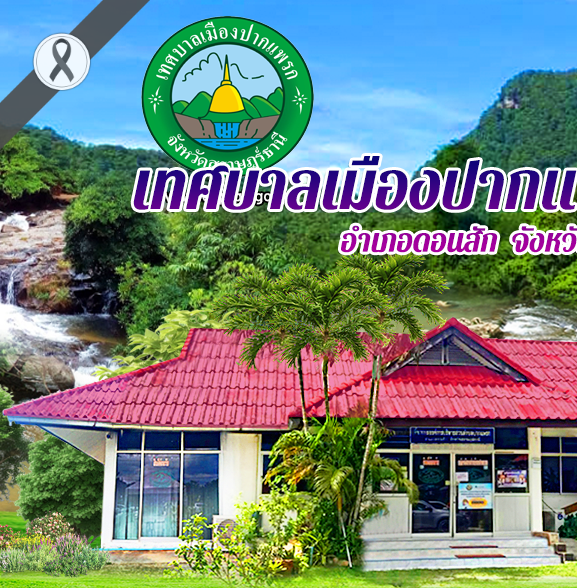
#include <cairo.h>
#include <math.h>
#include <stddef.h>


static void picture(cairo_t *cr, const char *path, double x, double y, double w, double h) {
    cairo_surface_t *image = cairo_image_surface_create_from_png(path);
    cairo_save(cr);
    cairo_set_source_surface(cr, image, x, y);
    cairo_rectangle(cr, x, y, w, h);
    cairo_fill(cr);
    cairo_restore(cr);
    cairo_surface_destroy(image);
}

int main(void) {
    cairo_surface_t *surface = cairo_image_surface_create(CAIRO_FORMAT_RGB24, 577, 588);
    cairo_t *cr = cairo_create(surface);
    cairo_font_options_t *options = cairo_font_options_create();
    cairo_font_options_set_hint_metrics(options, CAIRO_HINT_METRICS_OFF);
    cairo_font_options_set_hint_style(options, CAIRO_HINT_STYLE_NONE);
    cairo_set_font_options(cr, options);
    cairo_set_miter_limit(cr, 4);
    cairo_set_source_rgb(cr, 1, 1, 1);
    cairo_paint(cr);
    picture(cr, "img1.png", 0, 0, 4, 588);
    picture(cr, "img2.png", 4, 0, 573, 588);
    picture(cr, "img3.png", 141, 16, 173, 162);
    picture(cr, "img4.png", 129, 153, 448, 103);
    picture(cr, "img5.png", 0, 0, 150, 150);
    cairo_surface_write_to_png(surface, "page.png");
    cairo_font_options_destroy(options);
    cairo_destroy(cr);
    cairo_surface_destroy(surface);
    return 0;
}
